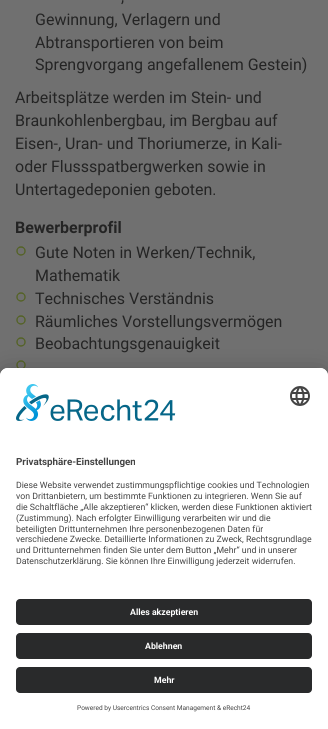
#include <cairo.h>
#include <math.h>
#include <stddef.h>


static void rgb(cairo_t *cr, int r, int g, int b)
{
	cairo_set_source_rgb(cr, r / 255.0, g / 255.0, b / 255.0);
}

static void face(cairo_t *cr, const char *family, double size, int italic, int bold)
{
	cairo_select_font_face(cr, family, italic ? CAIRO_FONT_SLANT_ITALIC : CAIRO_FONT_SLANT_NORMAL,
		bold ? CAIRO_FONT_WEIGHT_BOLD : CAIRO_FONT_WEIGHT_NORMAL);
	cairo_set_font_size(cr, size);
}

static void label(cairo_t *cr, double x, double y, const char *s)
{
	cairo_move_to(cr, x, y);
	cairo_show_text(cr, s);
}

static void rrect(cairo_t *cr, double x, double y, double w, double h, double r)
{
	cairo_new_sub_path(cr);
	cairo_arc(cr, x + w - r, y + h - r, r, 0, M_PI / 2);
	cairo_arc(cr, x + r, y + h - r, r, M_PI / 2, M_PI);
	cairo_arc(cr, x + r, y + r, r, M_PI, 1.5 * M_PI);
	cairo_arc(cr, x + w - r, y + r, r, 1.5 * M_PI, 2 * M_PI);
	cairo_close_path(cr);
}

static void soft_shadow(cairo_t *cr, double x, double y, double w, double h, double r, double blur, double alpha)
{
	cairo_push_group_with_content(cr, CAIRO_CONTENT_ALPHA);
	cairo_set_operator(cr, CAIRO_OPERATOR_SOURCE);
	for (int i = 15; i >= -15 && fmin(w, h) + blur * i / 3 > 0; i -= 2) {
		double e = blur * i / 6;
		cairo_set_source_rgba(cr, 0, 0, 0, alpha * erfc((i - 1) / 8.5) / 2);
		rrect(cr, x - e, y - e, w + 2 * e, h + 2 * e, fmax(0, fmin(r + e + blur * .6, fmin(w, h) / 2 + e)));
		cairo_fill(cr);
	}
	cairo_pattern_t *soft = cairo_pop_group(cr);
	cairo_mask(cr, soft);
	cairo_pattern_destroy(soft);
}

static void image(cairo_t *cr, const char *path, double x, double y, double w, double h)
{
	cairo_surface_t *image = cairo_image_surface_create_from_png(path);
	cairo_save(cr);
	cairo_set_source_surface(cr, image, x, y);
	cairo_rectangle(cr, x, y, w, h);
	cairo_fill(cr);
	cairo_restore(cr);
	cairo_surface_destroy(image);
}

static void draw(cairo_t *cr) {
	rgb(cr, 112, 112, 112);
	cairo_paint(cr);
	face(cr, "Roboto", 16, 0, 0);
	rgb(cr, 36, 36, 36);
	label(cr, 121, 2, ",");
	label(cr, 35, 25, "Gewinnung, Verlagern und");
	label(cr, 35, 48, "Abtransportieren von beim");
	label(cr, 35, 70, "Sprengvorgang angefallenem Gestein)");
	label(cr, 15, 103, "Arbeitsplätze werden im Stein- und");
	label(cr, 15, 126, "Braunkohlenbergbau, im Bergbau auf");
	label(cr, 15, 149, "Eisen-, Uran- und Thoriumerze, in Kali-");
	label(cr, 15, 172, "oder Flussspatbergwerken sowie in");
	label(cr, 15, 195, "Untertagedeponien geboten.");
	face(cr, "Roboto", 16, 0, 1);
	label(cr, 15, 233, "Bewerberprofil");
	image(cr, "image0.png", 16, 246, 10, 10);
	face(cr, "Roboto", 16, 0, 0);
	label(cr, 35, 258, "Gute Noten in Werken/Technik,");
	label(cr, 35, 281, "Mathematik");
	image(cr, "image0.png", 16, 292, 10, 10);
	label(cr, 35, 304, "Technisches Verständnis");
	image(cr, "image0.png", 16, 315, 10, 10);
	label(cr, 35, 327, "Räumliches Vorstellungsvermögen");
	image(cr, "image0.png", 16, 337, 10, 10);
	label(cr, 35, 349, "Beobachtungsgenauigkeit");
	image(cr, "image1.png", 16, 360, 10, 8);
	rgb(cr, 0, 0, 0);
	soft_shadow(cr, 0, 388, 328, 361, 8, 14, 0.3);
	soft_shadow(cr, 0, 373, 328, 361, 8, 13, 0.22);
	rgb(cr, 255, 255, 255);
	cairo_new_path(cr);
	cairo_move_to(cr, 8, 368);
	cairo_line_to(cr, 320, 368);
	cairo_curve_to(cr, 324.5, 368, 328, 371.5, 328, 376);
	cairo_line_to(cr, 328, 729);
	cairo_line_to(cr, 0, 729);
	cairo_line_to(cr, 0, 376);
	cairo_curve_to(cr, 0, 371.5, 3.5, 368, 8, 368);
	cairo_close_path(cr);
	cairo_fill(cr);
	cairo_new_path(cr);
	cairo_move_to(cr, 8, 368);
	cairo_line_to(cr, 320, 368);
	cairo_curve_to(cr, 324.5, 368, 328, 371.5, 328, 376);
	cairo_line_to(cr, 328, 587);
	cairo_line_to(cr, 0, 587);
	cairo_line_to(cr, 0, 376);
	cairo_curve_to(cr, 0, 371.5, 3.5, 368, 8, 368);
	cairo_close_path(cr);
	cairo_fill(cr);
	image(cr, "image2.png", 16, 384, 160, 37);
	image(cr, "image3.png", 290, 386, 20, 20);
	face(cr, "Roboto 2", 9.8, 0, 1);
	rgb(cr, 68, 68, 68);
	label(cr, 16, 465, "Privatsphäre-Einstellungen");
	face(cr, "Roboto 2", 8.75, 0, 0);
	label(cr, 16, 488, "Diese Website verwendet zustimmungspflichtige cookies und Technologien");
	label(cr, 16, 499, "von Drittanbietern, um bestimmte Funktionen zu integrieren. Wenn Sie auf");
	label(cr, 16, 510, "die Schaltfläche „Alle akzeptieren“ klicken, werden diese Funktionen aktiviert");
	label(cr, 16, 521, "(Zustimmung). Nach erfolgter Einwilligung verarbeiten wir und die");
	label(cr, 16, 532, "beteiligten Drittunternehmen Ihre personenbezogenen Daten für");
	label(cr, 16, 542, "verschiedene Zwecke. Detaillierte Informationen zu Zweck, Rechtsgrundlage");
	label(cr, 16, 553, "und Drittunternehmen finden Sie unter dem Button „Mehr“ und in unserer");
	label(cr, 16, 564, "Datenschutzerklärung. Sie können Ihre Einwilligung jederzeit widerrufen.");
	rgb(cr, 41, 42, 43);
	rrect(cr, 16, 599, 296, 26, 4);
	cairo_fill(cr);
	face(cr, "Roboto 2", 8.75, 0, 1);
	rgb(cr, 255, 255, 255);
	label(cr, 130, 615, "Alles akzeptieren");
	rgb(cr, 41, 42, 43);
	rrect(cr, 16, 633, 296, 26, 4);
	cairo_fill(cr);
	rgb(cr, 255, 255, 255);
	label(cr, 145, 649, "Ablehnen");
	rgb(cr, 41, 42, 43);
	rrect(cr, 16, 667, 296, 26, 4);
	cairo_fill(cr);
	rgb(cr, 255, 255, 255);
	label(cr, 154, 683, "Mehr");
	face(cr, "Roboto 2", 6.55, 0, 0);
	rgb(cr, 68, 68, 68);
	label(cr, 77, 710, "Powered by Usercentrics Consent Management & eRecht24");
}

int main(void) {
	cairo_surface_t *surface = cairo_image_surface_create(CAIRO_FORMAT_RGB24, 328, 729);
	cairo_t *cr = cairo_create(surface);
	cairo_font_options_t *options = cairo_font_options_create();
	cairo_font_options_set_hint_metrics(options, CAIRO_HINT_METRICS_OFF);
	cairo_font_options_set_hint_style(options, CAIRO_HINT_STYLE_NONE);
	cairo_set_font_options(cr, options);
	cairo_set_miter_limit(cr, 4);
	draw(cr);
	cairo_surface_write_to_png(surface, "render.png");
	cairo_font_options_destroy(options);
	cairo_destroy(cr);
	cairo_surface_destroy(surface);
	return 0;
}
